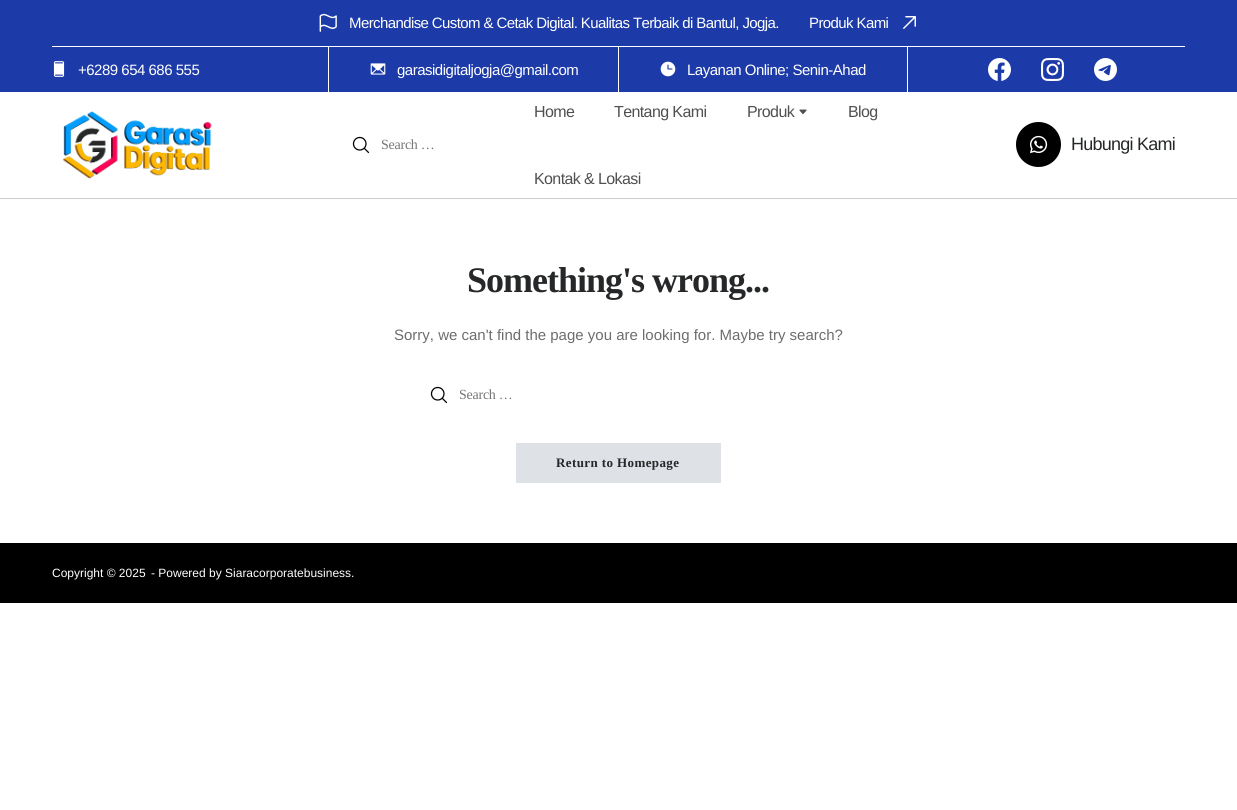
#include <cairo.h>
#include <math.h>
#include <stddef.h>


static void rgb(cairo_t *cr, int r, int g, int b)
{
	cairo_set_source_rgb(cr, r / 255.0, g / 255.0, b / 255.0);
}

static void face(cairo_t *cr, const char *family, double size, int italic, int bold)
{
	cairo_select_font_face(cr, family, italic ? CAIRO_FONT_SLANT_ITALIC : CAIRO_FONT_SLANT_NORMAL,
		bold ? CAIRO_FONT_WEIGHT_BOLD : CAIRO_FONT_WEIGHT_NORMAL);
	cairo_set_font_size(cr, size);
}

static void label(cairo_t *cr, double x, double y, const char *s)
{
	cairo_move_to(cr, x, y);
	cairo_show_text(cr, s);
}

static void tracked(cairo_t *cr, double x, double y, const char *s, double letter, double word)
{
	cairo_move_to(cr, x, y);
	while (*s) {
		char ch[5] = {0};
		int n = 0;
		do ch[n++] = *s++; while ((*s & 0xC0) == 0x80);
		cairo_show_text(cr, ch);
		cairo_rel_move_to(cr, letter + word * (*ch == ' '), 0);
	}
}

static void rect(cairo_t *cr, double x, double y, double w, double h)
{
	cairo_rectangle(cr, x, y, w, h);
	cairo_fill(cr);
}

static void image(cairo_t *cr, const char *path, double x, double y, double w, double h)
{
	cairo_surface_t *image = cairo_image_surface_create_from_png(path);
	cairo_save(cr);
	cairo_set_source_surface(cr, image, x, y);
	cairo_rectangle(cr, x, y, w, h);
	cairo_fill(cr);
	cairo_restore(cr);
	cairo_surface_destroy(image);
}

static void draw(cairo_t *cr) {
	rgb(cr, 255, 255, 255);
	cairo_paint(cr);
	rgb(cr, 28, 58, 168);
	rect(cr, 0, 0, 1237, 92);
	rgb(cr, 255, 255, 255);
	rect(cr, 52, 46, 1133, 1);
	image(cr, "image0.png", 319, 13, 18, 19);
	face(cr, "Liberation Sans", 15, 0, 0);
	tracked(cr, 349, 28, "Merchandise Custom & Cetak Digital. Kualitas Terbaik di Bantul, Jogja.", -0.6, 0);
	tracked(cr, 809, 28, "Produk Kami", -0.6, 0);
	image(cr, "image1.png", 903, 16, 13, 13);
	rect(cr, 328, 47, 1, 45);
	image(cr, "image2.png", 53, 61, 12, 16);
	tracked(cr, 78, 75, "+6289 654 686 555", -0.5, 0);
	rect(cr, 618, 47, 1, 45);
	image(cr, "image3.png", 370, 63, 16, 12);
	tracked(cr, 397, 75, "garasidigitaljogja@gmail.com", -0.5, 0);
	rect(cr, 907, 47, 1, 45);
	image(cr, "image4.png", 660, 61, 16, 16);
	tracked(cr, 687, 75, "Layanan Online; Senin-Ahad", -0.5, 0);
	image(cr, "image5.png", 988, 58, 23, 23);
	image(cr, "image6.png", 1041, 58, 23, 23);
	image(cr, "image7.png", 1094, 58, 23, 23);
	rgb(cr, 204, 204, 204);
	rect(cr, 0, 198, 1237, 1);
	image(cr, "image8.png", 63, 111, 149, 68);
	image(cr, "image9.png", 352, 136, 18, 18);
	face(cr, "Liberation Serif", 14, 0, 0);
	rgb(cr, 117, 117, 117);
	tracked(cr, 381, 149, "Search …", -0.25, 0);
	face(cr, "Liberation Sans", 16, 0, 0);
	rgb(cr, 80, 80, 80);
	tracked(cr, 534, 117, "Home", -0.6, 0);
	tracked(cr, 614, 117, "Tentang Kami", -0.6, 0);
	tracked(cr, 747, 117, "Produk", -0.6, 0);
	image(cr, "image10.png", 799, 109, 8, 6);
	tracked(cr, 848, 117, "Blog", -0.6, 0);
	tracked(cr, 534, 184, "Kontak & Lokasi", -0.6, 0);
	rgb(cr, 0, 0, 0);
	cairo_new_path(cr);
	cairo_arc(cr, 1038.5, 144.5, 22.5, 0, 2 * M_PI);
	cairo_fill(cr);
	image(cr, "image11.png", 1030, 135, 18, 19);
	face(cr, "Liberation Sans", 18, 0, 0);
	rgb(cr, 37, 39, 40);
	tracked(cr, 1071, 150, "Hubungi Kami", -0.75, 0);
	face(cr, "Liberation Serif", 36, 0, 1);
	tracked(cr, 467, 292, "Something's wrong...", -1, 0);
	face(cr, "Liberation Sans", 15, 0, 0);
	rgb(cr, 109, 109, 109);
	label(cr, 394, 340, "Sorry, we can't find the page you are looking for. Maybe try search?");
	image(cr, "image9.png", 430, 386, 18, 18);
	face(cr, "Liberation Serif", 14, 0, 0);
	rgb(cr, 117, 117, 117);
	tracked(cr, 459, 399, "Search …", -0.25, 0);
	rgb(cr, 222, 226, 230);
	rect(cr, 516, 443, 205, 40);
	face(cr, "Liberation Serif", 13, 0, 1);
	rgb(cr, 37, 39, 40);
	tracked(cr, 556, 467, "Return to Homepage", 0.4, 0);
	rgb(cr, 0, 0, 0);
	rect(cr, 0, 543, 1237, 60);
	face(cr, "Liberation Sans", 12, 0, 0);
	rgb(cr, 255, 255, 255);
	label(cr, 52, 577, "Copyright © 2025");
	label(cr, 151, 577, "- Powered by Siaracorporatebusiness.");
}

int main(void) {
	cairo_surface_t *surface = cairo_image_surface_create(CAIRO_FORMAT_RGB24, 1237, 810);
	cairo_t *cr = cairo_create(surface);
	cairo_font_options_t *options = cairo_font_options_create();
	cairo_font_options_set_hint_metrics(options, CAIRO_HINT_METRICS_OFF);
	cairo_font_options_set_hint_style(options, CAIRO_HINT_STYLE_NONE);
	cairo_set_font_options(cr, options);
	cairo_set_miter_limit(cr, 4);
	draw(cr);
	cairo_surface_write_to_png(surface, "render.png");
	cairo_font_options_destroy(options);
	cairo_destroy(cr);
	cairo_surface_destroy(surface);
	return 0;
}
